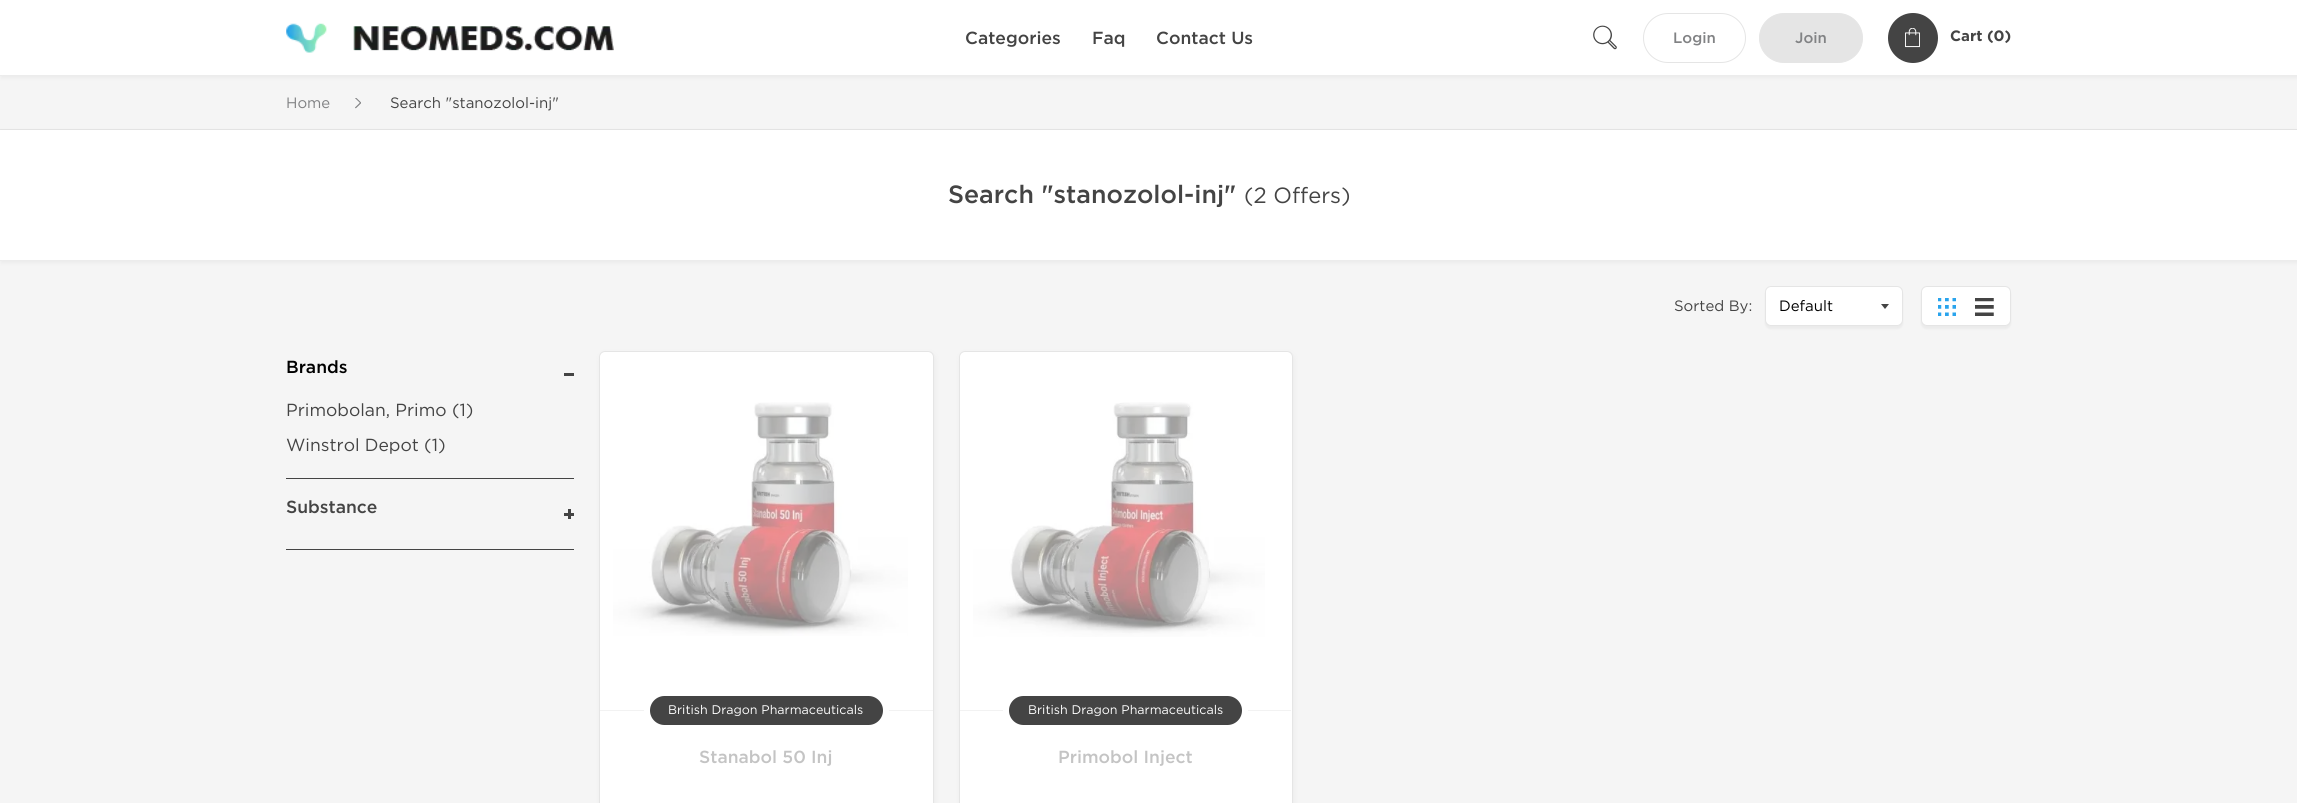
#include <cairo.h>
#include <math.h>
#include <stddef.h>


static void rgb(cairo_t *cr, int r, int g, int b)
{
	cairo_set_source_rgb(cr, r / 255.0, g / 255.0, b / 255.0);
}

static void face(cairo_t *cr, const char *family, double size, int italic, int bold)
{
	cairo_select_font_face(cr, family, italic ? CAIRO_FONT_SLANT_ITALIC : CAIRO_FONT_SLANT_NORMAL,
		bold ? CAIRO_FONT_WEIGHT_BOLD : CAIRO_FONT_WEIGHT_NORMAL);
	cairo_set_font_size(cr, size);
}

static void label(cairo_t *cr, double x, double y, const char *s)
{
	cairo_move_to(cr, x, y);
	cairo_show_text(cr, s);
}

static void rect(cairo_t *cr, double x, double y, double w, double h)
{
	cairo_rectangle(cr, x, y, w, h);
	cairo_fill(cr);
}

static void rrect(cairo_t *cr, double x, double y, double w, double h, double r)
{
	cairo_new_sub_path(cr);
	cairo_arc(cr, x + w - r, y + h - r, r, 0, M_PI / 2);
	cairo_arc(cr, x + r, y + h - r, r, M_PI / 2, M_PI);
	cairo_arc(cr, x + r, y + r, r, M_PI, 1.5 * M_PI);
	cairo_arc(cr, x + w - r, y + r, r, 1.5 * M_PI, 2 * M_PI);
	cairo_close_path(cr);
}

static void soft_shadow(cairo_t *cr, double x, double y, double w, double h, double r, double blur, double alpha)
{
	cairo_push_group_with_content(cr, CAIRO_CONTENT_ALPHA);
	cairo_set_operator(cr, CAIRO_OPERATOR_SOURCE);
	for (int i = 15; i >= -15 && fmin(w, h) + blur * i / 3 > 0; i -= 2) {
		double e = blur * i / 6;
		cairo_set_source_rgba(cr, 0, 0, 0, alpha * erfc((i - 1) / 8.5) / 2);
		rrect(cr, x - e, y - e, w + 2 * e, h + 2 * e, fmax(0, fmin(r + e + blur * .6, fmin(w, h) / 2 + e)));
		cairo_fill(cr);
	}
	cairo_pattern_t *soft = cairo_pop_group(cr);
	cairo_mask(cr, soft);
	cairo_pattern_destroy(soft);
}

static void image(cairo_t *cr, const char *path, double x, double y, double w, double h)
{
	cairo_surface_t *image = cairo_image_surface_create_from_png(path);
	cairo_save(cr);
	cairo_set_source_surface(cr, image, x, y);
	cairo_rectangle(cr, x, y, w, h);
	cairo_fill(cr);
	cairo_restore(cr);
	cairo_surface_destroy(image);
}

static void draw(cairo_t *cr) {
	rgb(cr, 245, 245, 245);
	cairo_paint(cr);
	rgb(cr, 68, 68, 68);
	soft_shadow(cr, 1, 1, 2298, 77, 0, 2, 0.06);
	rgb(cr, 255, 255, 255);
	rect(cr, 0, 0, 2297, 75);
	rgb(cr, 236, 236, 236);
	rect(cr, 0, 75, 2, 1);
	image(cr, "image0.png", 286, 23, 328, 30);
	face(cr, "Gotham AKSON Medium", 17.5, 0, 0);
	rgb(cr, 68, 68, 68);
	label(cr, 965, 44, "Categories");
	label(cr, 1092, 44, "Faq");
	label(cr, 1156, 44, "Contact Us");
	image(cr, "image1.png", 1593, 25, 24, 25);
	rrect(cr, 1643.5, 13.5, 102, 49, 24.5);
	rgb(cr, 229, 229, 229);
	cairo_set_line_width(cr, 1);
	cairo_stroke(cr);
	face(cr, "Gotham AKSON Medium", 15, 0, 0);
	rgb(cr, 129, 130, 132);
	label(cr, 1673, 43, "Login");
	rgb(cr, 229, 229, 229);
	rrect(cr, 1759.5, 13.5, 103, 49, 24.5);
	cairo_fill_preserve(cr);
	cairo_stroke(cr);
	rgb(cr, 129, 130, 132);
	label(cr, 1795, 43, "Join");
	rgb(cr, 68, 68, 68);
	cairo_new_path(cr);
	cairo_arc(cr, 1913, 38, 25, 0, 2 * M_PI);
	cairo_fill(cr);
	image(cr, "image2.png", 1905, 28, 15, 20);
	face(cr, "Gotham AKSON", 15, 0, 1);
	label(cr, 1950, 41, "Cart (0)");
	rgb(cr, 229, 229, 229);
	rect(cr, 0, 129, 2297, 1);
	face(cr, "Gotham AKSON", 15, 0, 0);
	rgb(cr, 129, 130, 132);
	label(cr, 286, 108, "Home");
	image(cr, "image3.png", 355, 98, 6, 11);
	rgb(cr, 68, 68, 68);
	label(cr, 390, 108, "Search \"stanozolol-inj\"");
	rgb(cr, 68, 68, 68);
	soft_shadow(cr, 1, 131, 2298, 132, 0, 2, 0.06);
	rgb(cr, 255, 255, 255);
	rect(cr, 0, 130, 2297, 130);
	rgb(cr, 236, 236, 236);
	rect(cr, 0, 260, 2, 1);
	face(cr, "Gotham AKSON Medium", 25, 0, 0);
	rgb(cr, 68, 68, 68);
	label(cr, 948, 203, "Search \"stanozolol-inj\"");
	face(cr, "Gotham AKSON", 22, 0, 0);
	label(cr, 1244, 203, "(2 Offers)");
	face(cr, "Gotham AKSON", 15, 0, 0);
	label(cr, 1674, 311, "Sorted By:");
	rgb(cr, 68, 68, 68);
	soft_shadow(cr, 1765, 289, 138, 40, 6, 1, 0.06);
	rgb(cr, 255, 255, 255);
	rrect(cr, 1765.5, 286.5, 137, 39, 5.5);
	cairo_fill_preserve(cr);
	rgb(cr, 229, 229, 229);
	cairo_stroke(cr);
	rgb(cr, 0, 0, 0);
	label(cr, 1779, 311, "Default");
	rgb(cr, 68, 68, 68);
	cairo_new_path(cr);
	cairo_move_to(cr, 1881, 304);
	cairo_line_to(cr, 1889, 304);
	cairo_line_to(cr, 1885, 309);
	cairo_close_path(cr);
	cairo_fill(cr);
	rgb(cr, 68, 68, 68);
	soft_shadow(cr, 1921, 289, 90, 40, 6, 1, 0.06);
	rgb(cr, 255, 255, 255);
	rrect(cr, 1921.5, 286.5, 89, 39, 5.5);
	cairo_fill_preserve(cr);
	rgb(cr, 229, 229, 229);
	cairo_stroke(cr);
	image(cr, "image4.png", 1938, 298, 18, 18);
	image(cr, "image5.png", 1975, 298, 19, 18);
	rgb(cr, 68, 68, 68);
	rect(cr, 286, 478, 288, 1);
	face(cr, "Gotham AKSON Medium", 17.5, 0, 0);
	rgb(cr, 0, 0, 0);
	label(cr, 286, 373, "Brands");
	rgb(cr, 68, 68, 68);
	rect(cr, 564, 373, 10, 3);
	face(cr, "Gotham AKSON", 17.5, 0, 0);
	label(cr, 286, 416, "Primobolan, Primo (1)");
	label(cr, 286, 451, "Winstrol Depot (1)");
	rect(cr, 286, 549, 288, 1);
	face(cr, "Gotham AKSON Medium", 17.5, 0, 0);
	label(cr, 286, 513, "Substance");
	rect(cr, 564, 513, 10, 3);
	rect(cr, 568, 509, 3, 10);
	rgb(cr, 68, 68, 68);
	soft_shadow(cr, 600, 353, 335, 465, 6, 3, 0.06);
	rgb(cr, 255, 255, 255);
	rrect(cr, 599.5, 351.5, 334, 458, 5.5);
	cairo_fill_preserve(cr);
	rgb(cr, 229, 229, 229);
	cairo_stroke(cr);
	rgb(cr, 242, 242, 242);
	rect(cr, 600, 710, 333, 1);
	image(cr, "image6.png", 613, 402, 295, 234);
	rgb(cr, 68, 68, 68);
	rrect(cr, 647, 693, 239, 35, 17.5);
	cairo_fill_preserve(cr);
	rgb(cr, 255, 255, 255);
	cairo_set_line_width(cr, 6);
	cairo_stroke(cr);
	face(cr, "Gotham AKSON", 12.5, 0, 0);
	label(cr, 668, 714, "British Dragon Pharmaceuticals");
	face(cr, "Gotham AKSON Medium", 17.5, 0, 0);
	rgb(cr, 196, 196, 196);
	label(cr, 699, 763, "Stanabol 50 Inj");
	rgb(cr, 68, 68, 68);
	soft_shadow(cr, 960, 353, 334, 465, 6, 3, 0.06);
	rgb(cr, 255, 255, 255);
	rrect(cr, 959.5, 351.5, 333, 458, 5.5);
	cairo_fill_preserve(cr);
	rgb(cr, 229, 229, 229);
	cairo_set_line_width(cr, 1);
	cairo_stroke(cr);
	rgb(cr, 242, 242, 242);
	rect(cr, 960, 710, 331, 1);
	image(cr, "image7.png", 973, 402, 292, 235);
	rgb(cr, 68, 68, 68);
	rrect(cr, 1006, 693, 239, 35, 17.5);
	cairo_fill_preserve(cr);
	rgb(cr, 255, 255, 255);
	cairo_set_line_width(cr, 6);
	cairo_stroke(cr);
	face(cr, "Gotham AKSON", 12.5, 0, 0);
	label(cr, 1028, 714, "British Dragon Pharmaceuticals");
	face(cr, "Gotham AKSON Medium", 17.5, 0, 0);
	rgb(cr, 196, 196, 196);
	label(cr, 1058, 763, "Primobol Inject");
}

int main(void) {
	cairo_surface_t *surface = cairo_image_surface_create(CAIRO_FORMAT_RGB24, 2297, 803);
	cairo_t *cr = cairo_create(surface);
	cairo_font_options_t *options = cairo_font_options_create();
	cairo_font_options_set_hint_metrics(options, CAIRO_HINT_METRICS_OFF);
	cairo_font_options_set_hint_style(options, CAIRO_HINT_STYLE_NONE);
	cairo_set_font_options(cr, options);
	cairo_set_miter_limit(cr, 4);
	draw(cr);
	cairo_surface_write_to_png(surface, "render.png");
	cairo_font_options_destroy(options);
	cairo_destroy(cr);
	cairo_surface_destroy(surface);
	return 0;
}
